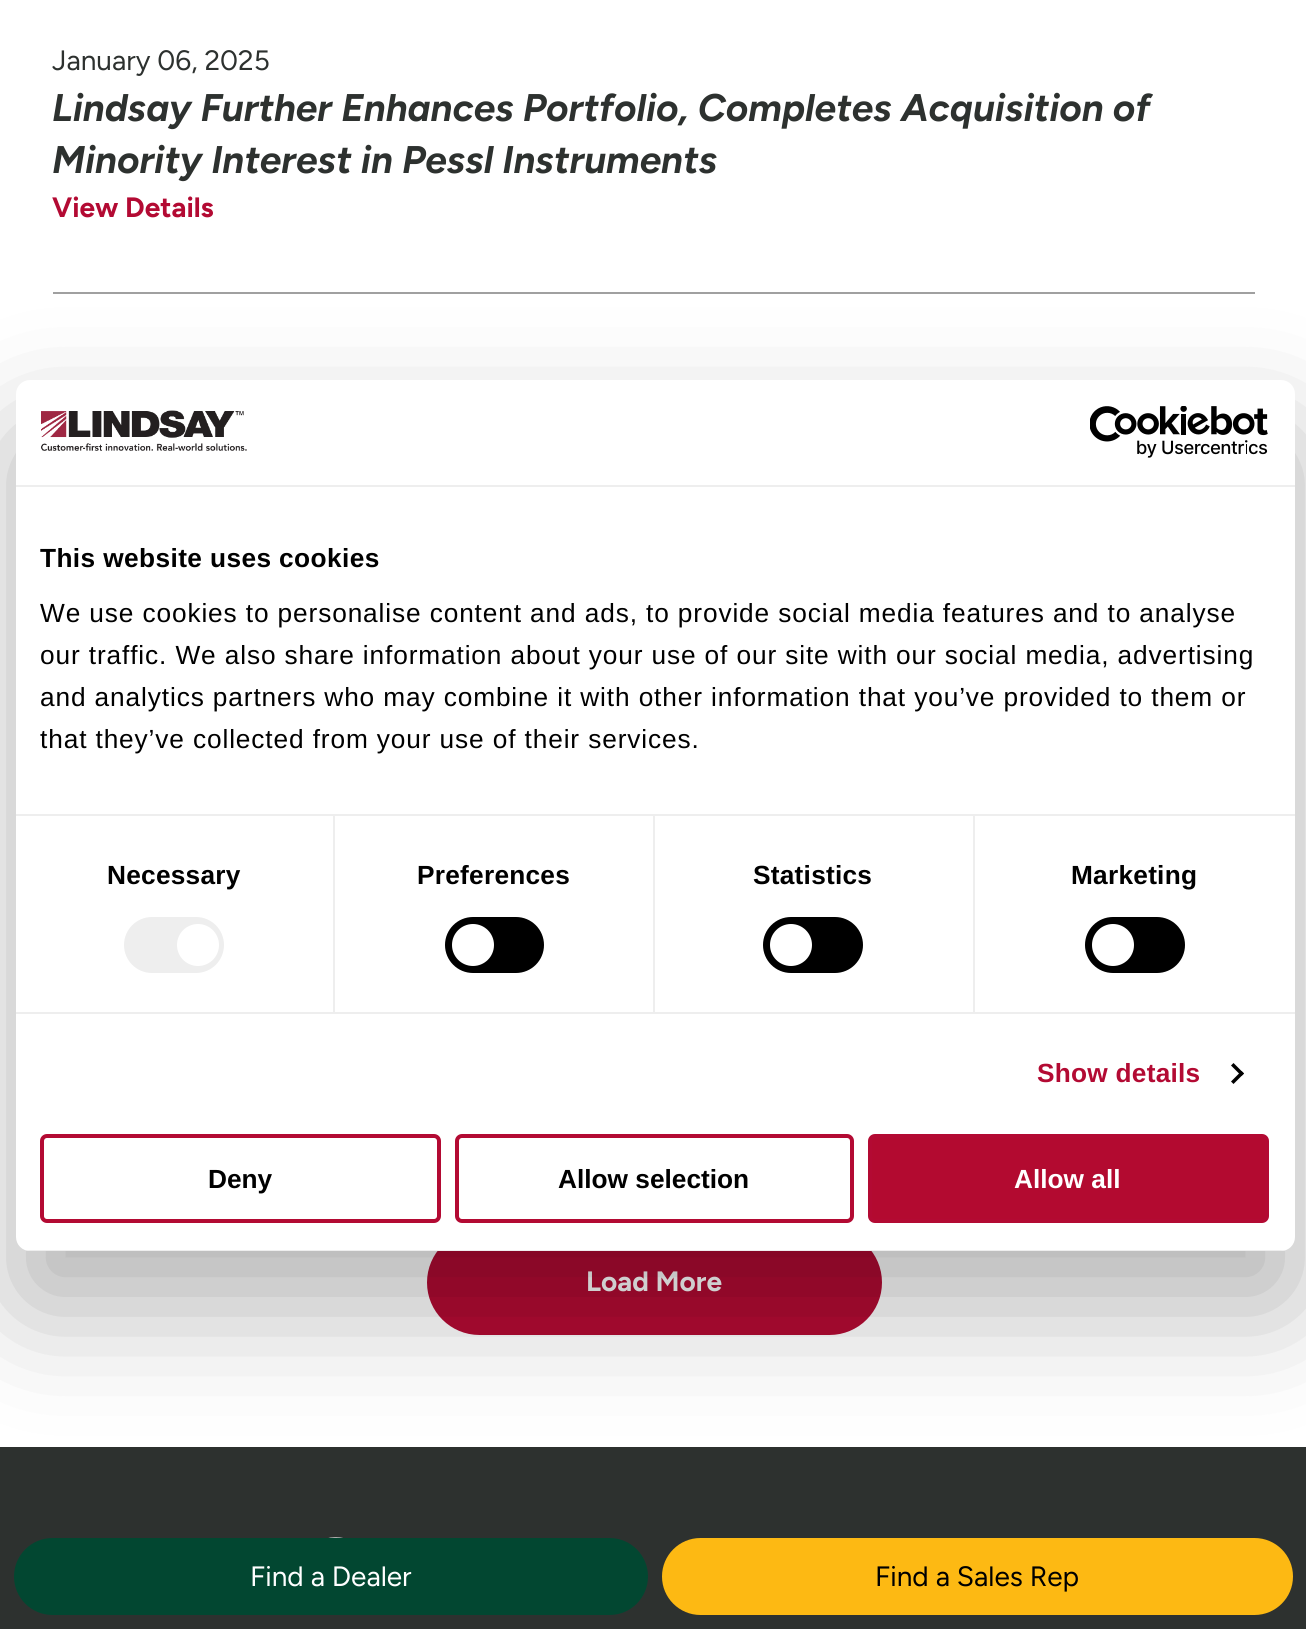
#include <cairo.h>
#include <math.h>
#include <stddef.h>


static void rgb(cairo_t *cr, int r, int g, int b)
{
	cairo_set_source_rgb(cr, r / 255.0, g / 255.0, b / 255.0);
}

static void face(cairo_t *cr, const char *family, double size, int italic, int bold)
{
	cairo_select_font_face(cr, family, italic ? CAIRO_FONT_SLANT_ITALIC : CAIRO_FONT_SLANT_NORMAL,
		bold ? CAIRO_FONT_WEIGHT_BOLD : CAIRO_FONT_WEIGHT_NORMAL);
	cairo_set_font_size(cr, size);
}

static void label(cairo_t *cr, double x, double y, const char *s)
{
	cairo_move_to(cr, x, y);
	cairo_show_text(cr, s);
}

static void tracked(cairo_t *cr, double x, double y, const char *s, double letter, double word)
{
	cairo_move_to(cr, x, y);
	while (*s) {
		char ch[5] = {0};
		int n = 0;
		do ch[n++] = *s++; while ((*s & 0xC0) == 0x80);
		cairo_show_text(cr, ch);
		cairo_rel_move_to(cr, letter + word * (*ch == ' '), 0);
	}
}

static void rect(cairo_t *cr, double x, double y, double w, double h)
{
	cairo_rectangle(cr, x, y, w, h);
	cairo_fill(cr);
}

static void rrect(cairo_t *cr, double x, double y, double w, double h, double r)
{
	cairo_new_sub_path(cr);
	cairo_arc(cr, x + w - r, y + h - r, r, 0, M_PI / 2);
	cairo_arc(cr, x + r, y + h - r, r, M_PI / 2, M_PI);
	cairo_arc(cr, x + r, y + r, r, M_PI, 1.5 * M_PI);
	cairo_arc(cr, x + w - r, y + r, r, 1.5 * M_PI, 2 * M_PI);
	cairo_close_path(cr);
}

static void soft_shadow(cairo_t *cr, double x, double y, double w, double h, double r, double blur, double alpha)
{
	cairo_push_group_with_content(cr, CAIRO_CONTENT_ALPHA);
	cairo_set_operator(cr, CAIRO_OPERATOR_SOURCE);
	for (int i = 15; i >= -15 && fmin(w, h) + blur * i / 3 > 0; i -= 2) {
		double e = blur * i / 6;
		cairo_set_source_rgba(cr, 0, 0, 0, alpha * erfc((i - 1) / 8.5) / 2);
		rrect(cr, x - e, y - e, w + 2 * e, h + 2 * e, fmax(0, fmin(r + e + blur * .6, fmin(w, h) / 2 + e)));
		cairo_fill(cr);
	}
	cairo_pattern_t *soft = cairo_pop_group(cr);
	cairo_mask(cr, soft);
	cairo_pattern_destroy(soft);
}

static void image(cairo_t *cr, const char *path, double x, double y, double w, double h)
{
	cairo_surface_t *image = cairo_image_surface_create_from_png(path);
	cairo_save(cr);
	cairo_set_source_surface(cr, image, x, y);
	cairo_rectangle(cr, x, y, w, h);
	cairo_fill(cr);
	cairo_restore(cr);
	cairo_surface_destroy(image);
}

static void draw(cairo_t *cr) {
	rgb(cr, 255, 255, 255);
	cairo_paint(cr);
	rgb(cr, 160, 160, 160);
	rect(cr, 53, 292, 1202, 2);
	face(cr, "Figtree", 28, 0, 0);
	rgb(cr, 45, 49, 47);
	label(cr, 52, 70, "January 06, 2025");
	face(cr, "Figtree", 38.5, 1, 1);
	label(cr, 52, 121, "Lindsay Further Enhances Portfolio, Completes Acquisition of");
	label(cr, 52, 173, "Minority Interest in Pessl Instruments");
	face(cr, "Figtree", 28, 0, 1);
	rgb(cr, 179, 10, 51);
	label(cr, 52, 217, "View Details");
	rrect(cr, 427, 1230, 455, 105, 52.5);
	cairo_fill(cr);
	rgb(cr, 255, 255, 255);
	label(cr, 586, 1291, "Load More");
	rgb(cr, 45, 49, 47);
	rect(cr, 0, 1447, 1306, 182);
	image(cr, "image0.png", 328, 1537, 15, 1);
	rgb(cr, 2, 71, 49);
	rrect(cr, 14, 1538, 634, 77, 38.5);
	cairo_fill(cr);
	face(cr, "Figtree", 28, 0, 0);
	rgb(cr, 255, 255, 255);
	label(cr, 250, 1586, "Find a Dealer");
	rgb(cr, 253, 185, 19);
	rrect(cr, 662, 1538, 631, 77, 38.5);
	cairo_fill(cr);
	rgb(cr, 0, 0, 0);
	label(cr, 875, 1586, "Find a Sales Rep");
	rgb(cr, 0, 0, 0);
	soft_shadow(cr, 16, 436, 1279, 871, 14, 59.5, 0.3);
	rgb(cr, 255, 255, 255);
	rrect(cr, 16, 380, 1279, 871, 14);
	cairo_fill(cr);
	rgb(cr, 238, 238, 238);
	rect(cr, 16, 485, 1279, 2);
	image(cr, "image1.png", 41, 410, 206, 41);
	image(cr, "image2.png", 1090, 406, 178, 52);
	rect(cr, 16, 814, 1279, 2);
	face(cr, "Liberation Sans", 26.25, 0, 1);
	rgb(cr, 0, 0, 0);
	tracked(cr, 40, 567, "This website uses cookies", 0.4, 0);
	face(cr, "Liberation Sans", 26.25, 0, 0);
	tracked(cr, 40, 622, "We use cookies to personalise content and ads, to provide social media features and to analyse", 0.88, 0);
	tracked(cr, 40, 664, "our traffic. We also share information about your use of our site with our social media, advertising", 0.88, 0);
	tracked(cr, 40, 706, "and analytics partners who may combine it with other information that you’ve provided to them or", 0.88, 0);
	tracked(cr, 40, 748, "that they’ve collected from your use of their services.", 0.88, 0);
	rgb(cr, 238, 238, 238);
	rect(cr, 16, 1012, 1279, 2);
	rect(cr, 333, 816, 2, 196);
	face(cr, "Liberation Sans", 26.25, 0, 1);
	rgb(cr, 0, 0, 0);
	tracked(cr, 107, 884, "Necessary", 0.25, 0);
	rgb(cr, 238, 238, 238);
	rrect(cr, 124, 917, 100, 56, 28);
	cairo_fill(cr);
	rgb(cr, 255, 255, 255);
	cairo_arc(cr, 198, 945, 21, 0, 2 * M_PI);
	cairo_fill(cr);
	rgb(cr, 238, 238, 238);
	rect(cr, 653, 816, 2, 196);
	rgb(cr, 0, 0, 0);
	tracked(cr, 417, 884, "Preferences", 0.25, 0);
	rrect(cr, 445, 917, 99, 56, 28);
	cairo_fill(cr);
	rgb(cr, 255, 255, 255);
	cairo_arc(cr, 473, 945, 21, 0, 2 * M_PI);
	cairo_fill(cr);
	rgb(cr, 238, 238, 238);
	rect(cr, 973, 816, 2, 196);
	rgb(cr, 0, 0, 0);
	tracked(cr, 753, 884, "Statistics", 0.25, 0);
	rrect(cr, 763, 917, 100, 56, 28);
	cairo_fill(cr);
	rgb(cr, 255, 255, 255);
	cairo_arc(cr, 791, 945, 21, 0, 2 * M_PI);
	cairo_fill(cr);
	rgb(cr, 0, 0, 0);
	tracked(cr, 1071, 884, "Marketing", 0.25, 0);
	rrect(cr, 1085, 917, 100, 56, 28);
	cairo_fill(cr);
	rgb(cr, 255, 255, 255);
	cairo_arc(cr, 1113, 945, 21, 0, 2 * M_PI);
	cairo_fill(cr);
	rgb(cr, 179, 10, 51);
	tracked(cr, 1037, 1082, "Show details", 0.25, 0);
	rgb(cr, 0, 0, 0);
	cairo_new_path(cr);
	cairo_move_to(cr, 1233.5, 1063);
	cairo_line_to(cr, 1244, 1073.5);
	cairo_line_to(cr, 1241.5, 1076);
	cairo_line_to(cr, 1231, 1065.5);
	cairo_close_path(cr);
	cairo_fill(cr);
	cairo_new_path(cr);
	cairo_move_to(cr, 1241.5, 1071);
	cairo_line_to(cr, 1244, 1073.5);
	cairo_line_to(cr, 1233.5, 1084);
	cairo_line_to(cr, 1231, 1081.5);
	cairo_close_path(cr);
	cairo_fill(cr);
	cairo_save(cr);
	rrect(cr, 16, 380, 1279, 871, 14);
	cairo_clip(cr);
	rgb(cr, 238, 238, 238);
	rect(cr, 25, 1250, 1261, 1);
	cairo_restore(cr);
	rrect(cr, 42, 1136, 397, 85, 5);
	rgb(cr, 179, 10, 51);
	cairo_set_line_width(cr, 4);
	cairo_stroke(cr);
	rgb(cr, 0, 0, 0);
	label(cr, 208, 1188, "Deny");
	rrect(cr, 457, 1136, 395, 85, 5);
	rgb(cr, 179, 10, 51);
	cairo_stroke(cr);
	rgb(cr, 0, 0, 0);
	label(cr, 558, 1188, "Allow selection");
	rgb(cr, 179, 10, 48);
	rrect(cr, 870, 1136, 397, 85, 5);
	cairo_fill_preserve(cr);
	rgb(cr, 179, 10, 51);
	cairo_stroke(cr);
	rgb(cr, 255, 255, 255);
	label(cr, 1014, 1188, "Allow all");
}

int main(void) {
	cairo_surface_t *surface = cairo_image_surface_create(CAIRO_FORMAT_RGB24, 1306, 1629);
	cairo_t *cr = cairo_create(surface);
	cairo_font_options_t *options = cairo_font_options_create();
	cairo_font_options_set_hint_metrics(options, CAIRO_HINT_METRICS_OFF);
	cairo_font_options_set_hint_style(options, CAIRO_HINT_STYLE_NONE);
	cairo_set_font_options(cr, options);
	cairo_set_miter_limit(cr, 4);
	draw(cr);
	cairo_surface_write_to_png(surface, "render.png");
	cairo_font_options_destroy(options);
	cairo_destroy(cr);
	cairo_surface_destroy(surface);
	return 0;
}
